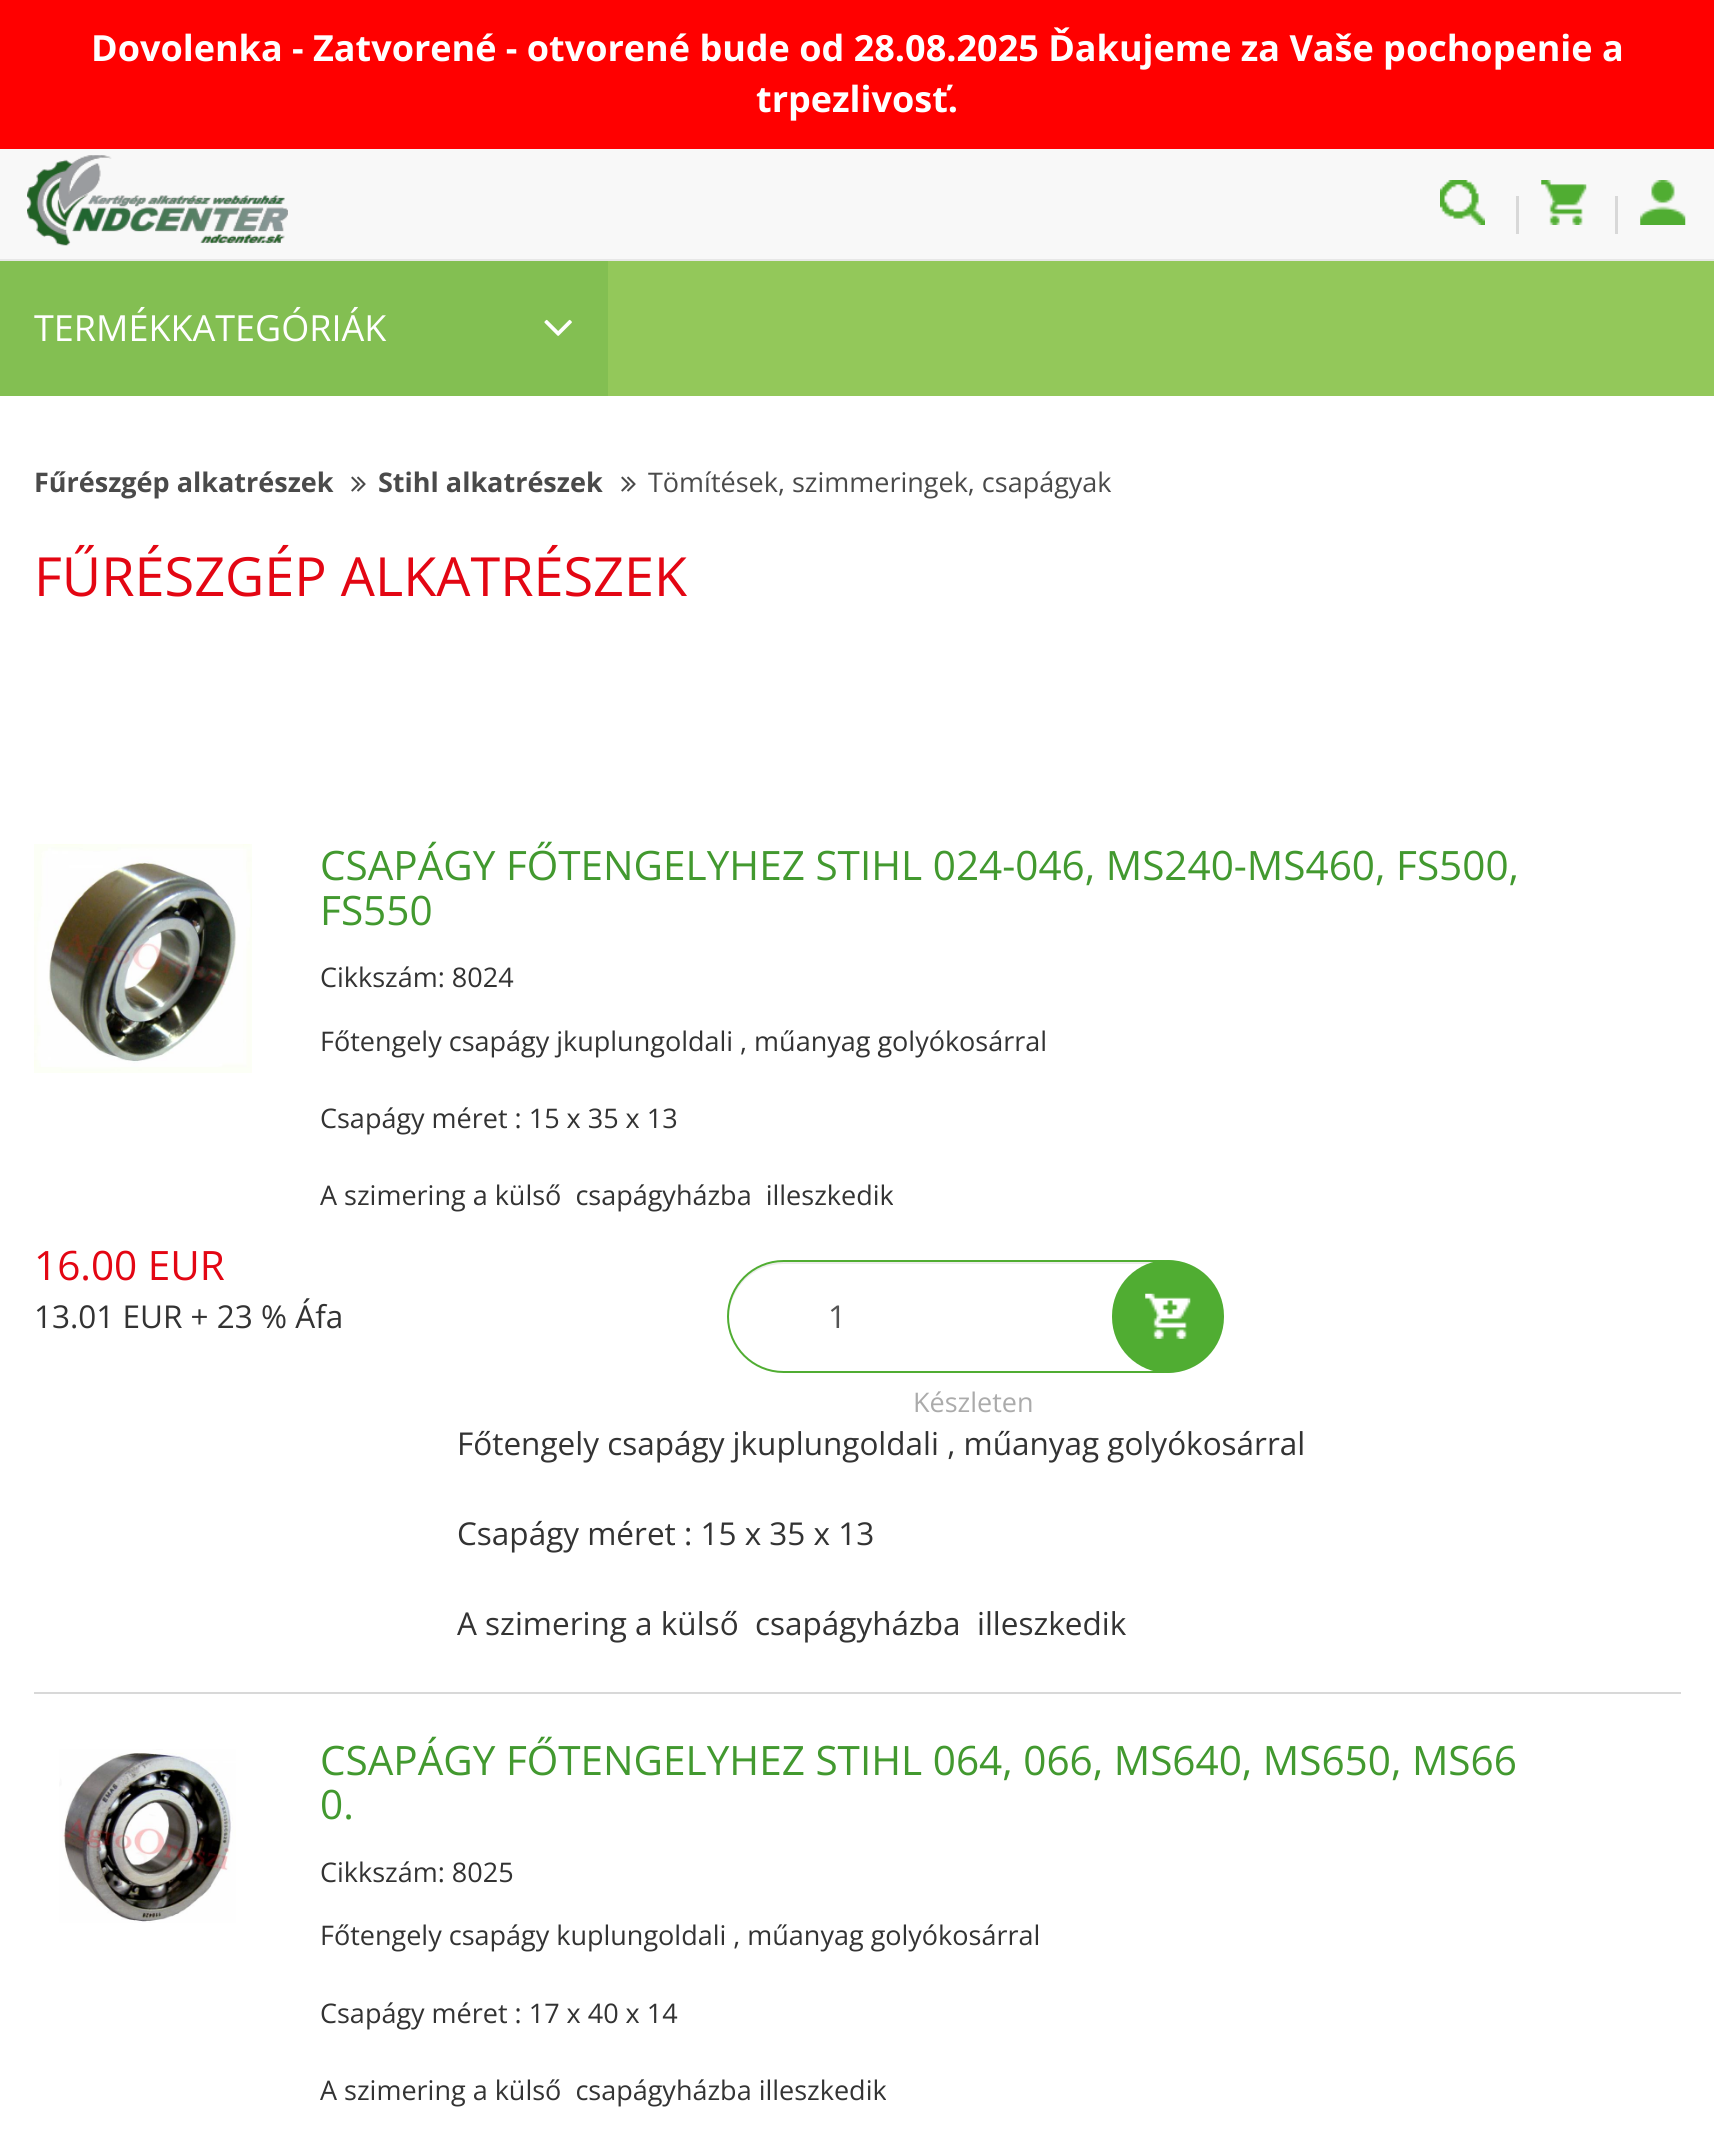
#include <cairo.h>
#include <math.h>
#include <stddef.h>


static void rgb(cairo_t *cr, int r, int g, int b)
{
	cairo_set_source_rgb(cr, r / 255.0, g / 255.0, b / 255.0);
}

static void face(cairo_t *cr, const char *family, double size, int italic, int bold)
{
	cairo_select_font_face(cr, family, italic ? CAIRO_FONT_SLANT_ITALIC : CAIRO_FONT_SLANT_NORMAL,
		bold ? CAIRO_FONT_WEIGHT_BOLD : CAIRO_FONT_WEIGHT_NORMAL);
	cairo_set_font_size(cr, size);
}

static void label(cairo_t *cr, double x, double y, const char *s)
{
	cairo_move_to(cr, x, y);
	cairo_show_text(cr, s);
}

static void rect(cairo_t *cr, double x, double y, double w, double h)
{
	cairo_rectangle(cr, x, y, w, h);
	cairo_fill(cr);
}

static void rrect(cairo_t *cr, double x, double y, double w, double h, double r)
{
	cairo_new_sub_path(cr);
	cairo_arc(cr, x + w - r, y + h - r, r, 0, M_PI / 2);
	cairo_arc(cr, x + r, y + h - r, r, M_PI / 2, M_PI);
	cairo_arc(cr, x + r, y + r, r, M_PI, 1.5 * M_PI);
	cairo_arc(cr, x + w - r, y + r, r, 1.5 * M_PI, 2 * M_PI);
	cairo_close_path(cr);
}

static void image(cairo_t *cr, const char *path, double x, double y, double w, double h)
{
	cairo_surface_t *image = cairo_image_surface_create_from_png(path);
	cairo_save(cr);
	cairo_set_source_surface(cr, image, x, y);
	cairo_rectangle(cr, x, y, w, h);
	cairo_fill(cr);
	cairo_restore(cr);
	cairo_surface_destroy(image);
}

static void draw(cairo_t *cr) {
	rgb(cr, 255, 0, 0);
	cairo_paint(cr);
	face(cr, "Open Sans", 36, 0, 1);
	rgb(cr, 255, 255, 255);
	label(cr, 91, 61, "Dovolenka - Zatvorené - otvorené bude od 28.08.2025 Ďakujeme za Vaše pochopenie a");
	label(cr, 756, 112, "trpezlivosť.");
	rgb(cr, 248, 248, 248);
	rect(cr, 0, 149, 1714, 110);
	rgb(cr, 231, 231, 231);
	rect(cr, 0, 259, 1714, 2);
	image(cr, "image0.png", 27, 155, 261, 91);
	image(cr, "image1.png", 1440, 180, 45, 45);
	rgb(cr, 216, 216, 216);
	rect(cr, 1516, 196, 3, 38);
	image(cr, "image2.png", 1541, 180, 46, 45);
	rect(cr, 1615, 196, 3, 38);
	image(cr, "image3.png", 1640, 180, 46, 45);
	rgb(cr, 147, 200, 90);
	rect(cr, 608, 261, 1106, 135);
	rgb(cr, 131, 191, 82);
	rect(cr, 0, 261, 608, 135);
	face(cr, "Open Sans", 36, 0, 0);
	rgb(cr, 255, 255, 255);
	label(cr, 34, 341, "TERMÉKKATEGÓRIÁK");
	image(cr, "image4.png", 544, 319, 28, 17);
	rect(cr, 0, 396, 1714, 1739);
	face(cr, "Open Sans", 27, 0, 1);
	rgb(cr, 74, 74, 74);
	label(cr, 34, 492, "Fűrészgép alkatrészek");
	image(cr, "image5.png", 351, 476, 15, 16);
	label(cr, 378, 492, "Stihl alkatrészek");
	image(cr, "image5.png", 621, 476, 15, 16);
	face(cr, "Open Sans", 27, 0, 0);
	label(cr, 648, 492, "Tömítések, szimmeringek, csapágyak");
	face(cr, "Open Sans", 54, 0, 0);
	rgb(cr, 227, 6, 19);
	label(cr, 34, 596, "FŰRÉSZGÉP ALKATRÉSZEK");
	rgb(cr, 216, 216, 216);
	rect(cr, 34, 1692, 1647, 2);
	image(cr, "image6.png", 34, 844, 218, 229);
	face(cr, "Open Sans", 40.5, 0, 0);
	rgb(cr, 66, 153, 47);
	label(cr, 320, 880, "CSAPÁGY FŐTENGELYHEZ STIHL 024-046, MS240-MS460, FS500,");
	label(cr, 320, 925, "FS550");
	face(cr, "Open Sans", 27, 0, 0);
	rgb(cr, 51, 51, 51);
	label(cr, 320, 987, "Cikkszám: 8024");
	label(cr, 320, 1051, "Főtengely csapágy jkuplungoldali , műanyag golyókosárral");
	label(cr, 320, 1128, "Csapágy méret : 15 x 35 x 13");
	label(cr, 320, 1205, "A szimering a külső  csapágyházba  illeszkedik");
	face(cr, "Open Sans", 40.5, 0, 0);
	rgb(cr, 227, 6, 19);
	label(cr, 34, 1280, "16.00 EUR");
	face(cr, "Open Sans", 31.5, 0, 0);
	rgb(cr, 51, 51, 51);
	label(cr, 34, 1328, "13.01 EUR + 23 % Áfa");
	rgb(cr, 236, 236, 236);
	cairo_new_path(cr);
	cairo_move_to(cr, 783, 1264);
	cairo_line_to(cr, 1163, 1264);
	cairo_curve_to(cr, 1193, 1264, 1216, 1288, 1217, 1317);
	cairo_line_to(cr, 1217, 1316);
	cairo_curve_to(cr, 1217, 1286, 1193, 1262, 1163, 1262);
	cairo_line_to(cr, 783, 1262);
	cairo_curve_to(cr, 753, 1262, 729, 1286, 729, 1316);
	cairo_line_to(cr, 729, 1317);
	cairo_curve_to(cr, 730, 1288, 753, 1264, 783, 1264);
	cairo_close_path(cr);
	cairo_fill(cr);
	rrect(cr, 728, 1261, 491, 111, 55.5);
	rgb(cr, 80, 173, 50);
	cairo_stroke(cr);
	rgb(cr, 85, 85, 85);
	label(cr, 828, 1328, "1");
	rgb(cr, 80, 173, 50);
	rrect(cr, 1112, 1260, 112, 113, 56);
	cairo_fill(cr);
	image(cr, "image7.png", 1145, 1293, 46, 46);
	face(cr, "Open Sans", 27, 0, 0);
	rgb(cr, 171, 171, 171);
	label(cr, 913, 1412, "Készleten");
	face(cr, "Open Sans", 31.5, 0, 0);
	rgb(cr, 51, 51, 51);
	label(cr, 457, 1455, "Főtengely csapágy jkuplungoldali , műanyag golyókosárral");
	label(cr, 457, 1545, "Csapágy méret : 15 x 35 x 13");
	label(cr, 457, 1635, "A szimering a külső  csapágyházba  illeszkedik");
	image(cr, "image8.png", 59, 1749, 177, 174);
	face(cr, "Open Sans", 40.5, 0, 0);
	rgb(cr, 66, 153, 47);
	label(cr, 320, 1775, "CSAPÁGY FŐTENGELYHEZ STIHL 064, 066, MS640, MS650, MS66");
	label(cr, 320, 1819, "0.");
	face(cr, "Open Sans", 27, 0, 0);
	rgb(cr, 51, 51, 51);
	label(cr, 320, 1882, "Cikkszám: 8025");
	label(cr, 320, 1945, "Főtengely csapágy kuplungoldali , műanyag golyókosárral");
	label(cr, 320, 2023, "Csapágy méret : 17 x 40 x 14");
	label(cr, 320, 2100, "A szimering a külső  csapágyházba illeszkedik");
}

int main(void) {
	cairo_surface_t *surface = cairo_image_surface_create(CAIRO_FORMAT_RGB24, 1714, 2135);
	cairo_t *cr = cairo_create(surface);
	cairo_font_options_t *options = cairo_font_options_create();
	cairo_font_options_set_hint_metrics(options, CAIRO_HINT_METRICS_OFF);
	cairo_font_options_set_hint_style(options, CAIRO_HINT_STYLE_NONE);
	cairo_set_font_options(cr, options);
	cairo_set_miter_limit(cr, 4);
	draw(cr);
	cairo_surface_write_to_png(surface, "render.png");
	cairo_font_options_destroy(options);
	cairo_destroy(cr);
	cairo_surface_destroy(surface);
	return 0;
}
